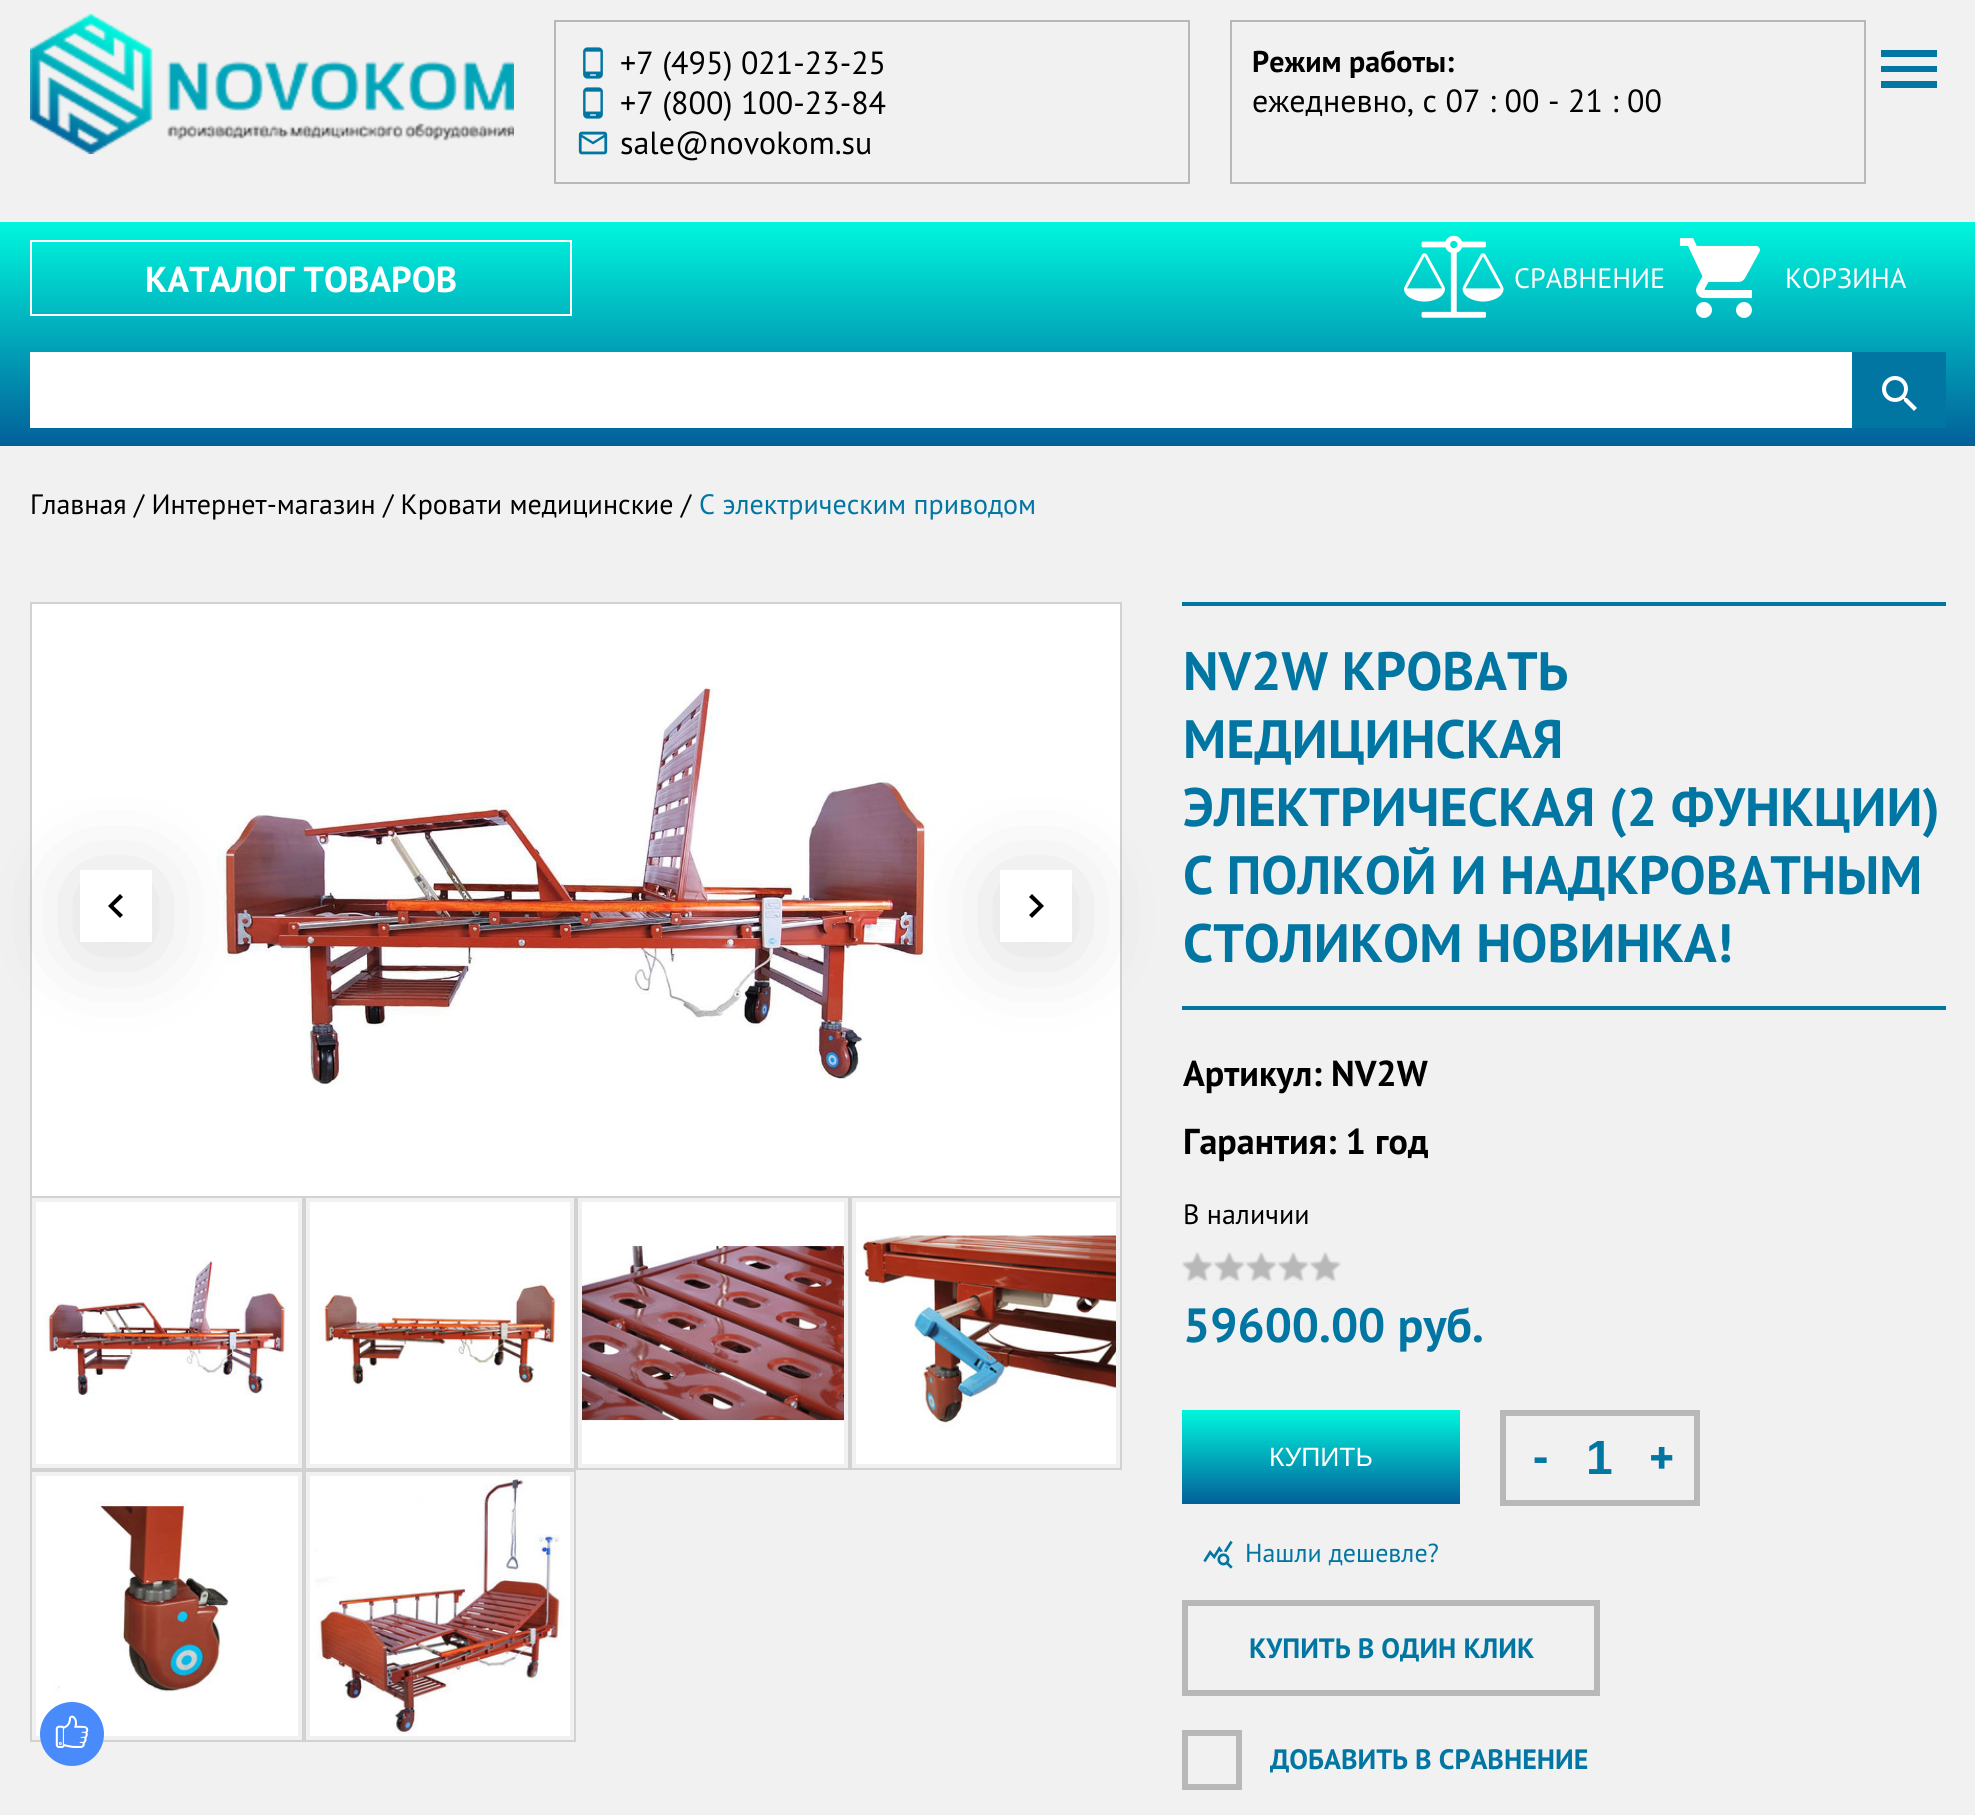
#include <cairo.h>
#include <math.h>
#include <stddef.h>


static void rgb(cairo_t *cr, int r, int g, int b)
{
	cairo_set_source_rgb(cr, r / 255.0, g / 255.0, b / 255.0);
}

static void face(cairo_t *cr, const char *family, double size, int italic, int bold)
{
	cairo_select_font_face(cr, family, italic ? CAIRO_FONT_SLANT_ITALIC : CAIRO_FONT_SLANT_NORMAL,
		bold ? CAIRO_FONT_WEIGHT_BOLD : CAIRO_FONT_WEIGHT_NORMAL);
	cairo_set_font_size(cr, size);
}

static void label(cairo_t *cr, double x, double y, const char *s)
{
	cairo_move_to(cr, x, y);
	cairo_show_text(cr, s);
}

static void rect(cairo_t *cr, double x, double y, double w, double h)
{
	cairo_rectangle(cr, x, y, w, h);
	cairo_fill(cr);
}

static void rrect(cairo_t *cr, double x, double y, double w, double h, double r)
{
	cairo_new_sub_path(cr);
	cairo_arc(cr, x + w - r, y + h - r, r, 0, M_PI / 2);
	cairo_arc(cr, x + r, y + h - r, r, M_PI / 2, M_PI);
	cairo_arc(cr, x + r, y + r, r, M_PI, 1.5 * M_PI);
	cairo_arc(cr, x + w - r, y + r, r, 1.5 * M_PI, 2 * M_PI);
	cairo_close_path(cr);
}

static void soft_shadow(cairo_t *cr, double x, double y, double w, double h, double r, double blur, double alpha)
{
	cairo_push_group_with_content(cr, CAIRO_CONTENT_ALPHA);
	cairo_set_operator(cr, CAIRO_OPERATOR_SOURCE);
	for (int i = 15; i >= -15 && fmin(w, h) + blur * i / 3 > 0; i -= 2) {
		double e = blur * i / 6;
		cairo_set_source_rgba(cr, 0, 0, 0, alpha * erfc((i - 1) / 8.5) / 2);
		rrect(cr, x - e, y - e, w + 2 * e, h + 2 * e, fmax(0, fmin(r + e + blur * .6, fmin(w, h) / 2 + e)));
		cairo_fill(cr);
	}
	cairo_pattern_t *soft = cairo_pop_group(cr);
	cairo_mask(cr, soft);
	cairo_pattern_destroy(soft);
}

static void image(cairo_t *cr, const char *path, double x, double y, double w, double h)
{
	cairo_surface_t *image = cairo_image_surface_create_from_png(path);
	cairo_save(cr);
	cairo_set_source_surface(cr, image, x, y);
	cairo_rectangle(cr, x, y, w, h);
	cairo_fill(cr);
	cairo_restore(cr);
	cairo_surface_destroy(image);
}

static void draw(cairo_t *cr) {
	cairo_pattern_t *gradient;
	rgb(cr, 241, 241, 241);
	cairo_paint(cr);
	image(cr, "image0.png", 30, 14, 484, 140);
	cairo_rectangle(cr, 555, 21, 634, 162);
	rgb(cr, 184, 184, 184);
	cairo_stroke(cr);
	image(cr, "image1.png", 583, 47, 20, 32);
	face(cr, "PT Sans", 32, 0, 0);
	rgb(cr, 0, 0, 0);
	label(cr, 620, 74, "+7 (495) 021-23-25");
	image(cr, "image1.png", 583, 87, 20, 32);
	label(cr, 620, 114, "+7 (800) 100-23-84");
	image(cr, "image2.png", 578, 131, 30, 24);
	label(cr, 620, 154, "sale@novokom.su");
	cairo_rectangle(cr, 1231, 21, 634, 162);
	rgb(cr, 184, 184, 184);
	cairo_stroke(cr);
	face(cr, "PT Sans", 30, 0, 1);
	rgb(cr, 0, 0, 0);
	label(cr, 1252, 72, "Режим работы:");
	face(cr, "PT Sans", 32, 0, 0);
	label(cr, 1252, 112, "ежедневно, с 07 : 00 - 21 : 00");
	rgb(cr, 2, 118, 163);
	cairo_new_path(cr);
	cairo_move_to(cr, 1881, 50);
	cairo_line_to(cr, 1937, 50);
	cairo_line_to(cr, 1937, 57);
	cairo_line_to(cr, 1881, 57);
	cairo_close_path(cr);
	cairo_move_to(cr, 1881, 72);
	cairo_line_to(cr, 1881, 66);
	cairo_line_to(cr, 1937, 66);
	cairo_line_to(cr, 1937, 72);
	cairo_close_path(cr);
	cairo_move_to(cr, 1881, 88);
	cairo_line_to(cr, 1881, 81);
	cairo_line_to(cr, 1937, 81);
	cairo_line_to(cr, 1937, 88);
	cairo_close_path(cr);
	cairo_fill(cr);
	gradient = cairo_pattern_create_linear(988, 222, 988, 446);
	cairo_pattern_add_color_stop_rgba(gradient, 0, 0, 0.965, 0.867, 1);
	cairo_pattern_add_color_stop_rgba(gradient, 1, 0.008, 0.373, 0.6, 1);
	cairo_set_source(cr, gradient);
	cairo_pattern_destroy(gradient);
	rect(cr, 0, 222, 1975, 224);
	cairo_rectangle(cr, 31, 241, 540, 74);
	rgb(cr, 255, 255, 255);
	cairo_stroke(cr);
	face(cr, "PT Sans", 36, 0, 1);
	label(cr, 145, 292, "КАТАЛОГ ТОВАРОВ");
	image(cr, "image3.png", 1404, 235, 100, 83);
	face(cr, "PT Sans", 28, 0, 0);
	label(cr, 1514, 288, "СРАВНЕНИЕ");
	image(cr, "image4.png", 1679, 238, 81, 80);
	label(cr, 1785, 288, "КОРЗИНА");
	rect(cr, 30, 352, 1822, 76);
	rgb(cr, 2, 118, 163);
	rect(cr, 1852, 352, 94, 76);
	image(cr, "image5.png", 1882, 376, 35, 35);
	rgb(cr, 0, 0, 0);
	label(cr, 30, 514, "Главная / Интернет-магазин / Кровати медицинские /");
	rgb(cr, 2, 118, 163);
	label(cr, 699, 514, "С электрическим приводом");
	cairo_rectangle(cr, 31, 1197, 272, 272);
	rgb(cr, 210, 210, 210);
	cairo_stroke(cr);
	cairo_rectangle(cr, 305, 1197, 270, 272);
	cairo_stroke(cr);
	cairo_rectangle(cr, 577, 1197, 272, 272);
	cairo_stroke(cr);
	cairo_rectangle(cr, 851, 1197, 270, 272);
	cairo_stroke(cr);
	rgb(cr, 255, 255, 255);
	cairo_rectangle(cr, 31, 603, 1090, 594);
	cairo_fill_preserve(cr);
	rgb(cr, 210, 210, 210);
	cairo_stroke(cr);
	image(cr, "image6.png", 217, 687, 718, 398);
	cairo_save(cr);
	cairo_set_fill_rule(cr, CAIRO_FILL_RULE_EVEN_ODD);
	cairo_new_path(cr);
	cairo_move_to(cr, 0, 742);
	cairo_line_to(cr, 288, 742);
	cairo_line_to(cr, 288, 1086);
	cairo_line_to(cr, 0, 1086);
	cairo_close_path(cr);
	cairo_move_to(cr, 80, 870);
	cairo_line_to(cr, 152, 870);
	cairo_line_to(cr, 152, 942);
	cairo_line_to(cr, 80, 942);
	cairo_close_path(cr);
	cairo_clip(cr);
	rgb(cr, 0, 0, 0);
	soft_shadow(cr, 80, 878, 72, 72, 0, 45, 0.15);
	cairo_restore(cr);
	rgb(cr, 0, 0, 0);
	cairo_new_path(cr);
	cairo_move_to(cr, 123, 897);
	cairo_line_to(cr, 113.5, 906);
	cairo_line_to(cr, 123, 915);
	cairo_line_to(cr, 120, 918);
	cairo_line_to(cr, 108, 906);
	cairo_line_to(cr, 120, 894);
	cairo_close_path(cr);
	cairo_fill(cr);
	rgb(cr, 2, 118, 163);
	rect(cr, 1182, 1006, 764, 4);
	cairo_save(cr);
	cairo_set_fill_rule(cr, CAIRO_FILL_RULE_EVEN_ODD);
	cairo_new_path(cr);
	cairo_move_to(cr, 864, 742);
	cairo_line_to(cr, 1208, 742);
	cairo_line_to(cr, 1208, 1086);
	cairo_line_to(cr, 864, 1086);
	cairo_close_path(cr);
	cairo_move_to(cr, 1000, 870);
	cairo_line_to(cr, 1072, 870);
	cairo_line_to(cr, 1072, 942);
	cairo_line_to(cr, 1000, 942);
	cairo_close_path(cr);
	cairo_clip(cr);
	rgb(cr, 0, 0, 0);
	soft_shadow(cr, 1000, 878, 72, 72, 0, 45, 0.15);
	cairo_restore(cr);
	rgb(cr, 0, 0, 0);
	cairo_new_path(cr);
	cairo_move_to(cr, 1032, 894);
	cairo_line_to(cr, 1044, 906);
	cairo_line_to(cr, 1032, 918);
	cairo_line_to(cr, 1029, 915);
	cairo_line_to(cr, 1038.5, 906);
	cairo_line_to(cr, 1029, 897);
	cairo_close_path(cr);
	cairo_fill(cr);
	image(cr, "image7.png", 36, 1202, 262, 262);
	image(cr, "image8.png", 310, 1202, 260, 262);
	image(cr, "image9.png", 582, 1202, 262, 262);
	image(cr, "image10.png", 856, 1202, 260, 262);
	cairo_rectangle(cr, 31, 1471, 272, 270);
	rgb(cr, 210, 210, 210);
	cairo_stroke(cr);
	image(cr, "image11.png", 36, 1476, 262, 260);
	cairo_rectangle(cr, 305, 1471, 270, 270);
	cairo_stroke(cr);
	image(cr, "image12.png", 310, 1476, 260, 260);
	rgb(cr, 2, 118, 163);
	rect(cr, 1182, 602, 764, 4);
	face(cr, "PT Sans", 54, 0, 1);
	label(cr, 1183, 690, "NV2W КРОВАТЬ");
	label(cr, 1183, 758, "МЕДИЦИНСКАЯ");
	label(cr, 1183, 826, "ЭЛЕКТРИЧЕСКАЯ (2 ФУНКЦИИ)");
	label(cr, 1183, 894, "С ПОЛКОЙ И НАДКРОВАТНЫМ");
	label(cr, 1183, 962, "СТОЛИКОМ НОВИНКА!");
	face(cr, "PT Sans", 36, 0, 1);
	rgb(cr, 0, 0, 0);
	label(cr, 1183, 1086, "Артикул: NV2W");
	label(cr, 1183, 1154, "Гарантия: 1 год");
	face(cr, "PT Sans", 28, 0, 0);
	label(cr, 1183, 1224, "В наличии");
	image(cr, "image13.png", 1182, 1252, 160, 32);
	face(cr, "PT Sans", 48, 0, 1);
	rgb(cr, 2, 118, 163);
	label(cr, 1183, 1342, "59600.00 руб.");
	gradient = cairo_pattern_create_linear(1321, 1410, 1321, 1504);
	cairo_pattern_add_color_stop_rgba(gradient, 0, 0, 0.965, 0.867, 1);
	cairo_pattern_add_color_stop_rgba(gradient, 1, 0.008, 0.373, 0.6, 1);
	cairo_set_source(cr, gradient);
	cairo_pattern_destroy(gradient);
	rect(cr, 1182, 1410, 278, 94);
	face(cr, "Liberation Sans", 26.5, 0, 0);
	rgb(cr, 255, 255, 255);
	label(cr, 1269, 1466, "КУПИТЬ");
	cairo_rectangle(cr, 1503, 1413, 194, 90);
	rgb(cr, 184, 184, 184);
	cairo_set_line_width(cr, 6);
	cairo_stroke(cr);
	face(cr, "PT Sans", 48, 0, 1);
	rgb(cr, 2, 118, 163);
	label(cr, 1532, 1474, "-");
	face(cr, "Liberation Sans", 48, 0, 1);
	label(cr, 1586, 1474, "1");
	face(cr, "PT Sans", 48, 0, 1);
	label(cr, 1649, 1474, "+");
	image(cr, "image14.png", 1203, 1540, 30, 29);
	face(cr, "PT Sans", 26, 0, 0);
	label(cr, 1245, 1562, "Нашли дешевле?");
	cairo_rectangle(cr, 1185, 1603, 412, 90);
	rgb(cr, 184, 184, 184);
	cairo_stroke(cr);
	face(cr, "PT Sans", 28, 0, 1);
	rgb(cr, 2, 118, 163);
	label(cr, 1249, 1658, "КУПИТЬ В ОДИН КЛИК");
	cairo_rectangle(cr, 1185, 1733, 54, 54);
	rgb(cr, 184, 184, 184);
	cairo_stroke(cr);
	rgb(cr, 2, 118, 163);
	label(cr, 1270, 1769, "ДОБАВИТЬ В СРАВНЕНИЕ");
	rgb(cr, 73, 139, 250);
	cairo_new_path(cr);
	cairo_arc(cr, 72, 1734, 32, 0, 2 * M_PI);
	cairo_fill(cr);
	image(cr, "image15.png", 55, 1715, 34, 33);
}

int main(void) {
	cairo_surface_t *surface = cairo_image_surface_create(CAIRO_FORMAT_RGB24, 1975, 1815);
	cairo_t *cr = cairo_create(surface);
	cairo_font_options_t *options = cairo_font_options_create();
	cairo_font_options_set_hint_metrics(options, CAIRO_HINT_METRICS_OFF);
	cairo_font_options_set_hint_style(options, CAIRO_HINT_STYLE_NONE);
	cairo_set_font_options(cr, options);
	cairo_set_miter_limit(cr, 4);
	draw(cr);
	cairo_surface_write_to_png(surface, "render.png");
	cairo_font_options_destroy(options);
	cairo_destroy(cr);
	cairo_surface_destroy(surface);
	return 0;
}
